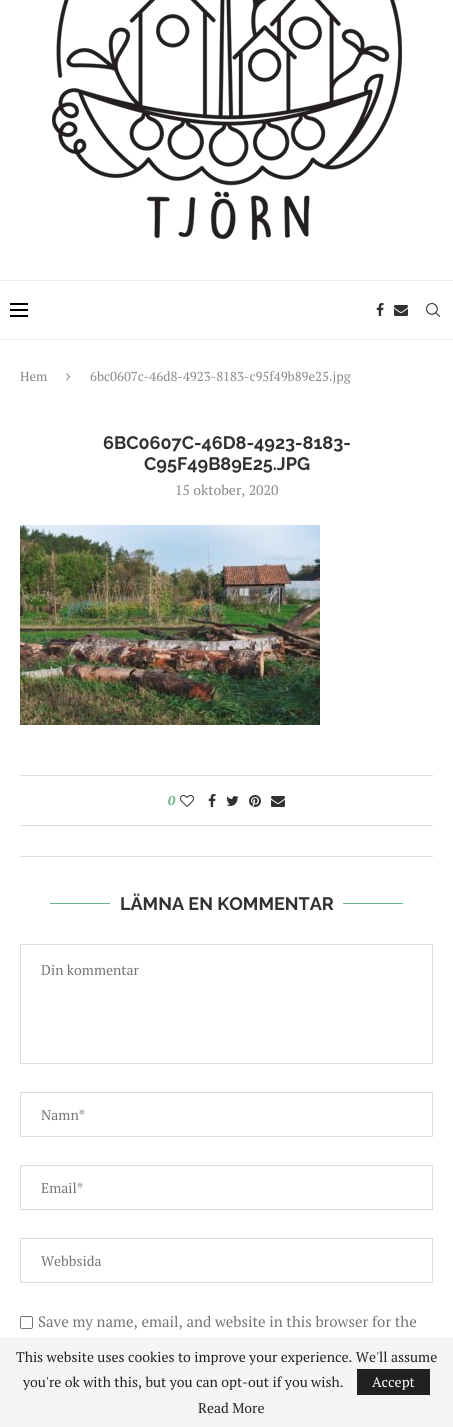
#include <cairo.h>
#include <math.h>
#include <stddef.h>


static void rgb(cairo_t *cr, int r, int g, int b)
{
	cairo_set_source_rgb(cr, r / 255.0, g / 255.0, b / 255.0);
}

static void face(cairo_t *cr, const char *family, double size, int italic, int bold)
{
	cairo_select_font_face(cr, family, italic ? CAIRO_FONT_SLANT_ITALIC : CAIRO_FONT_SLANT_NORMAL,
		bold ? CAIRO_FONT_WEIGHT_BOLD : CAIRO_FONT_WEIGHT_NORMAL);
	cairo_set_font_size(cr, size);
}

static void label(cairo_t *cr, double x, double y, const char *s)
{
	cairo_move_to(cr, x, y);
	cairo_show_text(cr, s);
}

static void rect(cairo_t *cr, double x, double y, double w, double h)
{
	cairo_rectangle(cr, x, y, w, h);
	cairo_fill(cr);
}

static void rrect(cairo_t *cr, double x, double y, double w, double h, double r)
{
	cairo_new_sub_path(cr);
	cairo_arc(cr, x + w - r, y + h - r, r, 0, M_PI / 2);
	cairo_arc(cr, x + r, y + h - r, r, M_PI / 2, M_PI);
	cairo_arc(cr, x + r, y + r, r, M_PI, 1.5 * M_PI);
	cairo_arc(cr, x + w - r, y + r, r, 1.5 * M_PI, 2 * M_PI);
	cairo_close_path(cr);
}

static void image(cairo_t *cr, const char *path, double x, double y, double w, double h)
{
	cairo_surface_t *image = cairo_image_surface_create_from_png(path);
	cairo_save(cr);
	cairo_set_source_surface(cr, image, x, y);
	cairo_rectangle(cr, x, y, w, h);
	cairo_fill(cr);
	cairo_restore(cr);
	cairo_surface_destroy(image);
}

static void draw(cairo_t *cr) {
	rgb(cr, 255, 255, 255);
	cairo_paint(cr);
	image(cr, "image0.png", 52, 0, 350, 240);
	rgb(cr, 236, 236, 236);
	rect(cr, 0, 280, 453, 1);
	rect(cr, 0, 339, 453, 1);
	rgb(cr, 0, 0, 0);
	rect(cr, 10, 303, 18, 2);
	rect(cr, 10, 309, 18, 2);
	rect(cr, 10, 315, 18, 2);
	image(cr, "image1.png", 376, 303, 8, 13);
	image(cr, "image2.png", 394, 305, 14, 11);
	image(cr, "image3.png", 426, 303, 14, 14);
	face(cr, "PT Serif", 13, 0, 0);
	rgb(cr, 136, 136, 136);
	label(cr, 20, 381, "Hem");
	image(cr, "image4.png", 66, 373, 5, 8);
	label(cr, 90, 381, "6bc0607c-46d8-4923-8183-c95f49b89e25.jpg");
	face(cr, "Raleway", 18, 0, 1);
	rgb(cr, 49, 49, 49);
	label(cr, 103, 449, "6BC0607C-46D8-4923-8183-");
	label(cr, 144, 470, "C95F49B89E25.JPG");
	face(cr, "PT Serif", 14, 0, 0);
	rgb(cr, 136, 136, 136);
	label(cr, 175, 495, "15 oktober, 2020");
	image(cr, "image5.png", 20, 525, 300, 200);
	rgb(cr, 222, 222, 222);
	rect(cr, 20, 775, 413, 1);
	face(cr, "PT Serif", 13, 1, 1);
	rgb(cr, 110, 180, 140);
	label(cr, 168, 805, "0");
	image(cr, "image6.png", 180, 795, 14, 12);
	image(cr, "image1.png", 208, 794, 8, 13);
	image(cr, "image7.png", 226, 796, 13, 10);
	image(cr, "image8.png", 249, 795, 12, 12);
	image(cr, "image2.png", 271, 796, 14, 11);
	rgb(cr, 222, 222, 222);
	rect(cr, 20, 825, 413, 1);
	rect(cr, 20, 856, 413, 1);
	rgb(cr, 110, 180, 140);
	rect(cr, 50, 903, 60, 1);
	face(cr, "Raleway", 18, 0, 1);
	rgb(cr, 49, 49, 49);
	label(cr, 120, 910, "LÄMNA EN KOMMENTAR");
	rgb(cr, 110, 180, 140);
	rect(cr, 343, 903, 60, 1);
	cairo_rectangle(cr, 20.5, 944.5, 412, 119);
	rgb(cr, 222, 222, 222);
	cairo_set_line_width(cr, 1);
	cairo_stroke(cr);
	face(cr, "PT Serif", 14, 0, 0);
	rgb(cr, 117, 117, 117);
	label(cr, 41, 975, "Din kommentar");
	cairo_rectangle(cr, 20.5, 1092.5, 412, 44);
	rgb(cr, 222, 222, 222);
	cairo_stroke(cr);
	rgb(cr, 117, 117, 117);
	label(cr, 41, 1120, "Namn*");
	cairo_rectangle(cr, 20.5, 1165.5, 412, 44);
	rgb(cr, 222, 222, 222);
	cairo_stroke(cr);
	rgb(cr, 117, 117, 117);
	label(cr, 41, 1193, "Email*");
	cairo_rectangle(cr, 20.5, 1238.5, 412, 44);
	rgb(cr, 222, 222, 222);
	cairo_stroke(cr);
	rgb(cr, 117, 117, 117);
	label(cr, 41, 1266, "Webbsida");
	rrect(cr, 20.5, 1316.5, 12, 12, 1.5);
	rgb(cr, 118, 118, 118);
	cairo_stroke(cr);
	face(cr, "PT Serif", 15, 0, 0);
	rgb(cr, 117, 117, 117);
	label(cr, 38, 1327, "Save my name, email, and website in this browser for the");
	rgb(cr, 245, 245, 245);
	rect(cr, 0, 1337, 453, 90);
	face(cr, "PT Serif", 14, 0, 0);
	rgb(cr, 33, 33, 33);
	label(cr, 16, 1362, "This website uses cookies to improve your experience. We'll assume");
	label(cr, 23, 1387, "you're ok with this, but you can opt-out if you wish.");
	rect(cr, 357, 1369, 73, 26);
	rgb(cr, 255, 255, 255);
	label(cr, 372, 1387, "Accept");
	rgb(cr, 33, 33, 33);
	label(cr, 198, 1413, "Read More");
}

int main(void) {
	cairo_surface_t *surface = cairo_image_surface_create(CAIRO_FORMAT_RGB24, 453, 1427);
	cairo_t *cr = cairo_create(surface);
	cairo_font_options_t *options = cairo_font_options_create();
	cairo_font_options_set_hint_metrics(options, CAIRO_HINT_METRICS_OFF);
	cairo_font_options_set_hint_style(options, CAIRO_HINT_STYLE_NONE);
	cairo_set_font_options(cr, options);
	cairo_set_miter_limit(cr, 4);
	draw(cr);
	cairo_surface_write_to_png(surface, "render.png");
	cairo_font_options_destroy(options);
	cairo_destroy(cr);
	cairo_surface_destroy(surface);
	return 0;
}
